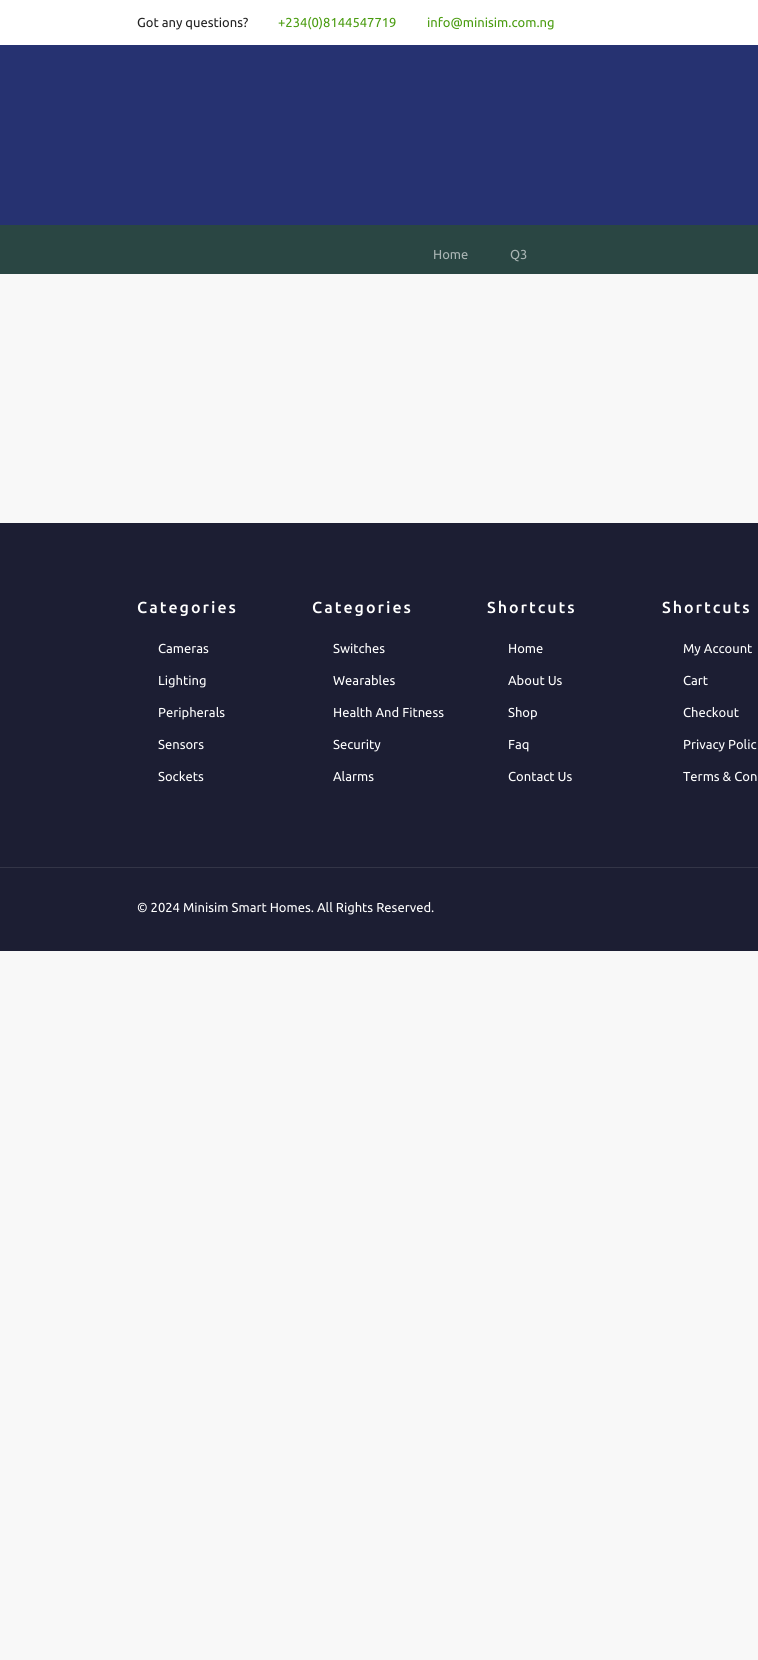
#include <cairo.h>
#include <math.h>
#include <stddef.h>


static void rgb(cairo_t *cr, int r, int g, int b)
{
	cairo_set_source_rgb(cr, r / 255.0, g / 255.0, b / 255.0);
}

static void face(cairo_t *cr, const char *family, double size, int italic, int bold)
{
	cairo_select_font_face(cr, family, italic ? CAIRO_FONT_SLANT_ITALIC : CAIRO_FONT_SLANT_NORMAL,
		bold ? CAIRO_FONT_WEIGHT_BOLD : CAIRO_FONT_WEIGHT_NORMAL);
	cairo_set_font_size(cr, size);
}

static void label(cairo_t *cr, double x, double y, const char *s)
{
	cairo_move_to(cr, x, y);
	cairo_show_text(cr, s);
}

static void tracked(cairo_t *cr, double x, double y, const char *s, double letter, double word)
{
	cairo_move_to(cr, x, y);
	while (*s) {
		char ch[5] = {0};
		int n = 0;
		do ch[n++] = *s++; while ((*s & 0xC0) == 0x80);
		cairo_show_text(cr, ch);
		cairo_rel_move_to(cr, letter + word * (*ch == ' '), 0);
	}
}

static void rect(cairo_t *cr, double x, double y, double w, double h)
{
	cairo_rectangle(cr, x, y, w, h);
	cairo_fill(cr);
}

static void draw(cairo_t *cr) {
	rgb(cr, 248, 248, 248);
	cairo_paint(cr);
	rgb(cr, 38, 50, 113);
	rect(cr, 0, 45, 758, 180);
	rgb(cr, 255, 255, 255);
	rect(cr, 0, 0, 758, 45);
	face(cr, "Ubuntu", 13, 0, 0);
	rgb(cr, 34, 34, 34);
	label(cr, 137, 27, "Got any questions?");
	rgb(cr, 74, 156, 16);
	label(cr, 278, 27, "+234(0)8144547719");
	label(cr, 427, 27, "info@minisim.com.ng");
	rgb(cr, 42, 70, 67);
	rect(cr, 0, 225, 758, 49);
	rgb(cr, 170, 181, 180);
	label(cr, 433, 259, "Home");
	label(cr, 510, 259, "Q3");
	rgb(cr, 28, 30, 51);
	rect(cr, 0, 523, 758, 428);
	face(cr, "Ubuntu Medium", 16, 0, 0);
	rgb(cr, 255, 255, 255);
	tracked(cr, 137, 613, "Categories", 2, 0);
	face(cr, "Ubuntu", 13, 0, 0);
	label(cr, 158, 653, "Cameras");
	label(cr, 158, 685, "Lighting");
	label(cr, 158, 717, "Peripherals");
	label(cr, 158, 749, "Sensors");
	label(cr, 158, 781, "Sockets");
	face(cr, "Ubuntu Medium", 16, 0, 0);
	tracked(cr, 312, 613, "Categories", 2, 0);
	face(cr, "Ubuntu", 13, 0, 0);
	label(cr, 333, 653, "Switches");
	label(cr, 333, 685, "Wearables");
	label(cr, 333, 717, "Health And Fitness");
	label(cr, 333, 749, "Security");
	label(cr, 333, 781, "Alarms");
	face(cr, "Ubuntu Medium", 16, 0, 0);
	tracked(cr, 487, 613, "Shortcuts", 2, 0);
	face(cr, "Ubuntu", 13, 0, 0);
	label(cr, 508, 653, "Home");
	label(cr, 508, 685, "About Us");
	label(cr, 508, 717, "Shop");
	label(cr, 508, 749, "Faq");
	label(cr, 508, 781, "Contact Us");
	face(cr, "Ubuntu Medium", 16, 0, 0);
	tracked(cr, 662, 613, "Shortcuts", 2, 0);
	face(cr, "Ubuntu", 13, 0, 0);
	label(cr, 683, 653, "My Account");
	label(cr, 683, 685, "Cart");
	label(cr, 683, 717, "Checkout");
	label(cr, 683, 749, "Privacy Polic");
	label(cr, 683, 781, "Terms & Con");
	rgb(cr, 51, 53, 71);
	rect(cr, 0, 867, 758, 1);
	rgb(cr, 255, 255, 255);
	label(cr, 137, 912, "© 2024 Minisim Smart Homes. All Rights Reserved.");
}

int main(void) {
	cairo_surface_t *surface = cairo_image_surface_create(CAIRO_FORMAT_RGB24, 758, 1660);
	cairo_t *cr = cairo_create(surface);
	cairo_font_options_t *options = cairo_font_options_create();
	cairo_font_options_set_hint_metrics(options, CAIRO_HINT_METRICS_OFF);
	cairo_font_options_set_hint_style(options, CAIRO_HINT_STYLE_NONE);
	cairo_set_font_options(cr, options);
	cairo_set_miter_limit(cr, 4);
	draw(cr);
	cairo_surface_write_to_png(surface, "render.png");
	cairo_font_options_destroy(options);
	cairo_destroy(cr);
	cairo_surface_destroy(surface);
	return 0;
}
